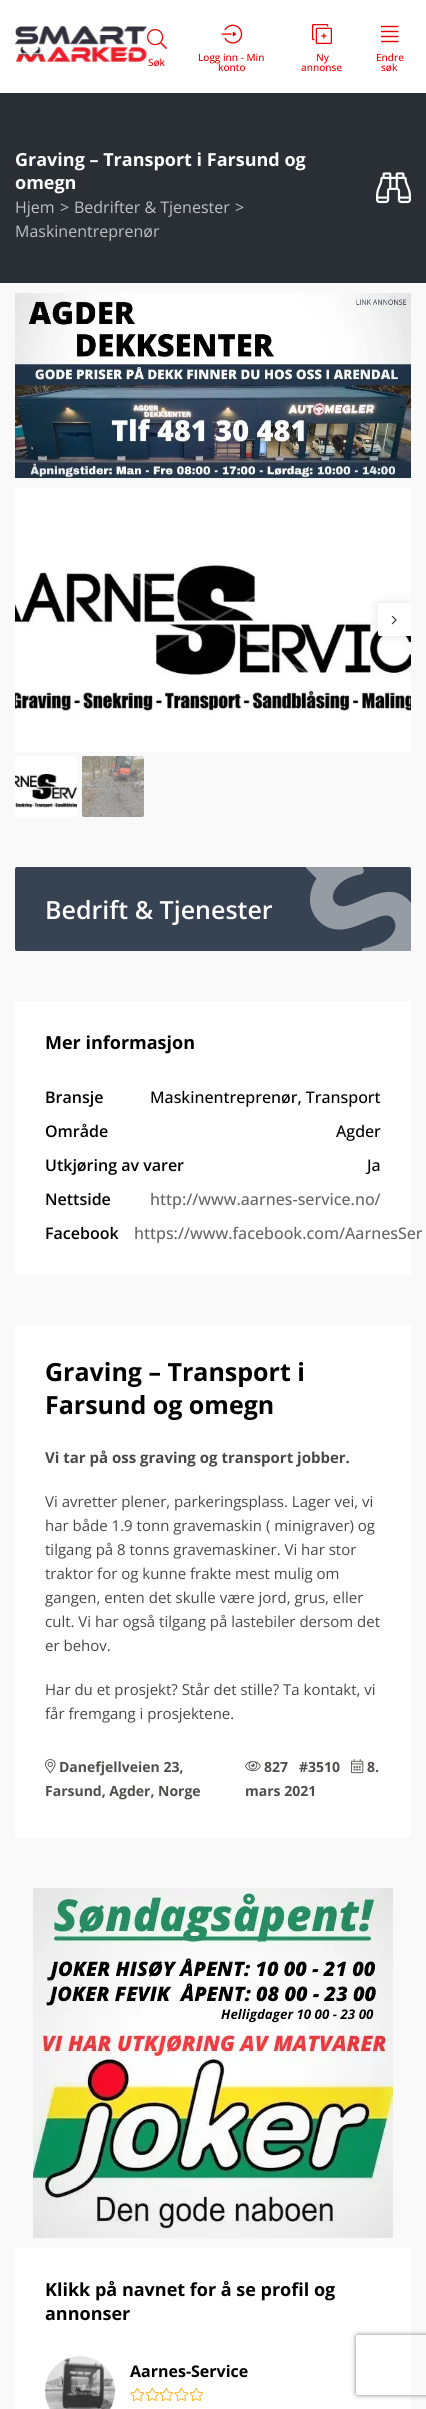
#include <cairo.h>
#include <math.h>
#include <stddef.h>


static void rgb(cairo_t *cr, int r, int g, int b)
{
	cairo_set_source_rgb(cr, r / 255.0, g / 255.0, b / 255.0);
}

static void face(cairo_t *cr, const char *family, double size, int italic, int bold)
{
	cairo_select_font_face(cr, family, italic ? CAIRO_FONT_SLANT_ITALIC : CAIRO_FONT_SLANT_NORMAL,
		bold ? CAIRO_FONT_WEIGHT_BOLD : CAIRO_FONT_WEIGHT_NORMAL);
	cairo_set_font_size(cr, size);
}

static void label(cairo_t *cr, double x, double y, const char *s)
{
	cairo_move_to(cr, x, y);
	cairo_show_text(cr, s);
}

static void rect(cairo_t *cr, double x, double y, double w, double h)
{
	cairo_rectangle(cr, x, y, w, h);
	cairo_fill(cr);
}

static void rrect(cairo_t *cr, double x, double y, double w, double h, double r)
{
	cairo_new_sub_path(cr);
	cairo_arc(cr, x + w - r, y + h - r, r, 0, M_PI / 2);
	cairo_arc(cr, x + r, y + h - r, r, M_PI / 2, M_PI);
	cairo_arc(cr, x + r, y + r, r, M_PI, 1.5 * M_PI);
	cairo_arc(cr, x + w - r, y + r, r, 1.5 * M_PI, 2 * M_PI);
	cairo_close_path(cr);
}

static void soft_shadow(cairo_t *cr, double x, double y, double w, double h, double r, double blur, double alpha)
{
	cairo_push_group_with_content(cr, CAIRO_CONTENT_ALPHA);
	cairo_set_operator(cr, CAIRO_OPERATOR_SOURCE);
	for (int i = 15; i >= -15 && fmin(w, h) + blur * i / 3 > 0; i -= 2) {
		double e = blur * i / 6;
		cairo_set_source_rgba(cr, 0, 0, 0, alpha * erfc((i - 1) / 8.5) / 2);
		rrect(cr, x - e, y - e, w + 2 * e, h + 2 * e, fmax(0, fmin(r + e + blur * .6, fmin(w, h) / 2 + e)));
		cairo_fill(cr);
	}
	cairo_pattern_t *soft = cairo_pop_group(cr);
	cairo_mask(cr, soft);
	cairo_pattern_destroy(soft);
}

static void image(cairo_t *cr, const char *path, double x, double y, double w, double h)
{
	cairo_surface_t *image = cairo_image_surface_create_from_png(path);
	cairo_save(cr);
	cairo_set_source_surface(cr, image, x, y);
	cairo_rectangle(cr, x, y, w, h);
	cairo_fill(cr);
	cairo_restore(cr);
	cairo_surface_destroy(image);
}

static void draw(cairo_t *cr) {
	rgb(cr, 249, 249, 249);
	cairo_paint(cr);
	rgb(cr, 42, 47, 54);
	rect(cr, 0, 93, 426, 190);
	rgb(cr, 23, 23, 23);
	soft_shadow(cr, 0, 4, 426, 93, 0, 2, 0.06);
	rgb(cr, 255, 255, 255);
	rect(cr, 0, 0, 426, 93);
	image(cr, "image0.png", 15, 26, 132, 37);
	image(cr, "image1.png", 147, 29, 20, 20);
	face(cr, "Open Sans Medium", 10, 0, 0);
	rgb(cr, 237, 0, 0);
	label(cr, 148, 66, "Søk");
	image(cr, "image2.png", 221, 24, 22, 20);
	label(cr, 198, 61, "Logg inn - Min");
	label(cr, 218, 71, "konto");
	image(cr, "image3.png", 312, 24, 20, 20);
	label(cr, 316, 61, "Ny");
	label(cr, 301, 71, "annonse");
	image(cr, "image4.png", 381, 25, 18, 18);
	label(cr, 376, 61, "Endre");
	label(cr, 381, 71, "søk");
	face(cr, "Open Sans", 18, 0, 1);
	rgb(cr, 255, 255, 255);
	label(cr, 15, 166, "Graving – Transport i Farsund og");
	label(cr, 15, 189, "omegn");
	face(cr, "Open Sans", 16, 0, 0);
	rgb(cr, 191, 193, 195);
	label(cr, 15, 213, "Hjem");
	label(cr, 60, 213, ">");
	label(cr, 74, 213, "Bedrifter & Tjenester");
	label(cr, 235, 213, ">");
	label(cr, 15, 237, "Maskinentreprenør");
	image(cr, "image5.png", 376, 172, 35, 32);
	image(cr, "image6.png", 15, 293, 396, 185);
	image(cr, "image7.png", 15, 488, 396, 264);
	cairo_save(cr);
	rrect(cr, 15, 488, 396, 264, 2);
	cairo_clip(cr);
	rgb(cr, 0, 0, 0);
	soft_shadow(cr, 378, 603, 33, 33, 2, 5, 0.12);
	cairo_restore(cr);
	rgb(cr, 255, 255, 255);
	cairo_new_path(cr);
	cairo_move_to(cr, 380, 603);
	cairo_line_to(cr, 411, 603);
	cairo_line_to(cr, 411, 636);
	cairo_line_to(cr, 380, 636);
	cairo_curve_to(cr, 379, 636, 378, 635, 378, 634);
	cairo_line_to(cr, 378, 605);
	cairo_curve_to(cr, 378, 604, 379, 603, 380, 603);
	cairo_close_path(cr);
	cairo_fill(cr);
	image(cr, "image8.png", 391, 615, 6, 10);
	image(cr, "image9.png", 15, 756, 62, 61);
	image(cr, "image10.png", 82, 756, 62, 61);
	rgb(cr, 55, 66, 83);
	rrect(cr, 15, 867, 396, 84, 2);
	cairo_fill(cr);
	face(cr, "Open Sans SemiBold", 25, 0, 0);
	rgb(cr, 255, 255, 255);
	label(cr, 45, 919, "Bedrift & Tjenester");
	image(cr, "image11.png", 305, 867, 106, 84);
	rrect(cr, 15, 1001, 396, 274, 2);
	cairo_fill(cr);
	face(cr, "Open Sans", 18, 0, 1);
	rgb(cr, 0, 0, 0);
	label(cr, 45, 1049, "Mer informasjon");
	face(cr, "Open Sans SemiBold", 16, 0, 0);
	label(cr, 45, 1103, "Bransje");
	face(cr, "Open Sans Medium", 16, 0, 0);
	label(cr, 150, 1103, "Maskinentreprenør, Transport");
	face(cr, "Open Sans SemiBold", 16, 0, 0);
	label(cr, 45, 1137, "Område");
	face(cr, "Open Sans Medium", 16, 0, 0);
	label(cr, 336, 1137, "Agder");
	face(cr, "Open Sans SemiBold", 16, 0, 0);
	label(cr, 45, 1171, "Utkjøring av varer");
	face(cr, "Open Sans Medium", 16, 0, 0);
	label(cr, 367, 1171, "Ja");
	face(cr, "Open Sans SemiBold", 16, 0, 0);
	label(cr, 45, 1205, "Nettside");
	face(cr, "Open Sans Medium", 16, 0, 0);
	rgb(cr, 102, 102, 102);
	label(cr, 150, 1205, "http://www.aarnes-service.no/");
	face(cr, "Open Sans SemiBold", 16, 0, 0);
	rgb(cr, 0, 0, 0);
	label(cr, 45, 1239, "Facebook");
	face(cr, "Open Sans Medium", 16, 0, 0);
	rgb(cr, 102, 102, 102);
	label(cr, 134, 1239, "https://www.facebook.com/AarnesSer");
	rgb(cr, 255, 255, 255);
	rrect(cr, 15, 1325, 396, 513, 2);
	cairo_fill(cr);
	face(cr, "Open Sans", 25, 0, 1);
	rgb(cr, 0, 0, 0);
	label(cr, 45, 1381, "Graving – Transport i");
	label(cr, 45, 1414, "Farsund og omegn");
	face(cr, "Open Sans", 15, 0, 1);
	rgb(cr, 72, 72, 72);
	label(cr, 45, 1463, "Vi tar på oss graving og transport jobber.");
	face(cr, "Open Sans", 15, 0, 0);
	label(cr, 45, 1507, "Vi avretter plener, parkeringsplass. Lager vei, vi");
	label(cr, 45, 1531, "har både 1.9 tonn gravemaskin ( minigraver) og");
	label(cr, 45, 1555, "tilgang på 8 tonns gravemaskiner. Vi har stor");
	label(cr, 45, 1579, "traktor for og kunne frakte mest mulig om");
	label(cr, 45, 1603, "gangen, enten det skulle være jord, grus, eller");
	label(cr, 45, 1627, "cult. Vi har også tilgang på lastebiler dersom det");
	label(cr, 45, 1651, "er behov.");
	label(cr, 45, 1695, "Har du et prosjekt? Står det stille? Ta kontakt, vi");
	label(cr, 45, 1719, "får fremgang i prosjektene.");
	image(cr, "image12.png", 45, 1759, 11, 15);
	face(cr, "Open Sans", 14, 0, 1);
	rgb(cr, 82, 77, 77);
	label(cr, 59, 1772, "Danefjellveien 23,");
	label(cr, 45, 1796, "Farsund, Agder, Norge");
	image(cr, "image13.png", 245, 1761, 16, 11);
	label(cr, 264, 1772, "827");
	label(cr, 299, 1772, "#3510");
	image(cr, "image14.png", 351, 1759, 13, 15);
	label(cr, 367, 1772, "8.");
	label(cr, 245, 1796, "mars 2021");
	image(cr, "image15.png", 33, 1888, 360, 350);
	rgb(cr, 255, 255, 255);
	rrect(cr, 15, 2248, 396, 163, 2);
	cairo_fill(cr);
	face(cr, "Open Sans", 18, 0, 1);
	rgb(cr, 0, 0, 0);
	label(cr, 45, 2296, "Klikk på navnet for å se profil og");
	label(cr, 45, 2320, "annonser");
	image(cr, "image16.png", 45, 2356, 70, 53);
	face(cr, "Open Sans", 16, 0, 1);
	label(cr, 130, 2377, "Aarnes-Service");
	image(cr, "image17.png", 130, 2388, 15, 13);
	image(cr, "image17.png", 145, 2388, 15, 13);
	image(cr, "image18.png", 159, 2388, 15, 13);
	image(cr, "image17.png", 174, 2388, 15, 13);
	image(cr, "image17.png", 189, 2388, 15, 13);
	cairo_save(cr);
	cairo_set_fill_rule(cr, CAIRO_FILL_RULE_EVEN_ODD);
	cairo_new_path(cr);
	cairo_move_to(cr, 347, 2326);
	cairo_line_to(cr, 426, 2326);
	cairo_line_to(cr, 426, 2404);
	cairo_line_to(cr, 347, 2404);
	cairo_close_path(cr);
	cairo_move_to(cr, 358, 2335);
	cairo_line_to(cr, 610, 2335);
	cairo_curve_to(cr, 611, 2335, 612, 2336, 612, 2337);
	cairo_line_to(cr, 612, 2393);
	cairo_curve_to(cr, 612, 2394, 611, 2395, 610, 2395);
	cairo_line_to(cr, 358, 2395);
	cairo_curve_to(cr, 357, 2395, 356, 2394, 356, 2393);
	cairo_line_to(cr, 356, 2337);
	cairo_curve_to(cr, 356, 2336, 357, 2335, 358, 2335);
	cairo_close_path(cr);
	cairo_clip(cr);
	rgb(cr, 128, 128, 128);
	soft_shadow(cr, 356, 2335, 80, 60, 2, 2.5, 1);
	cairo_restore(cr);
}

int main(void) {
	cairo_surface_t *surface = cairo_image_surface_create(CAIRO_FORMAT_RGB24, 426, 2409);
	cairo_t *cr = cairo_create(surface);
	cairo_font_options_t *options = cairo_font_options_create();
	cairo_font_options_set_hint_metrics(options, CAIRO_HINT_METRICS_OFF);
	cairo_font_options_set_hint_style(options, CAIRO_HINT_STYLE_NONE);
	cairo_set_font_options(cr, options);
	cairo_set_miter_limit(cr, 4);
	draw(cr);
	cairo_surface_write_to_png(surface, "render.png");
	cairo_font_options_destroy(options);
	cairo_destroy(cr);
	cairo_surface_destroy(surface);
	return 0;
}
